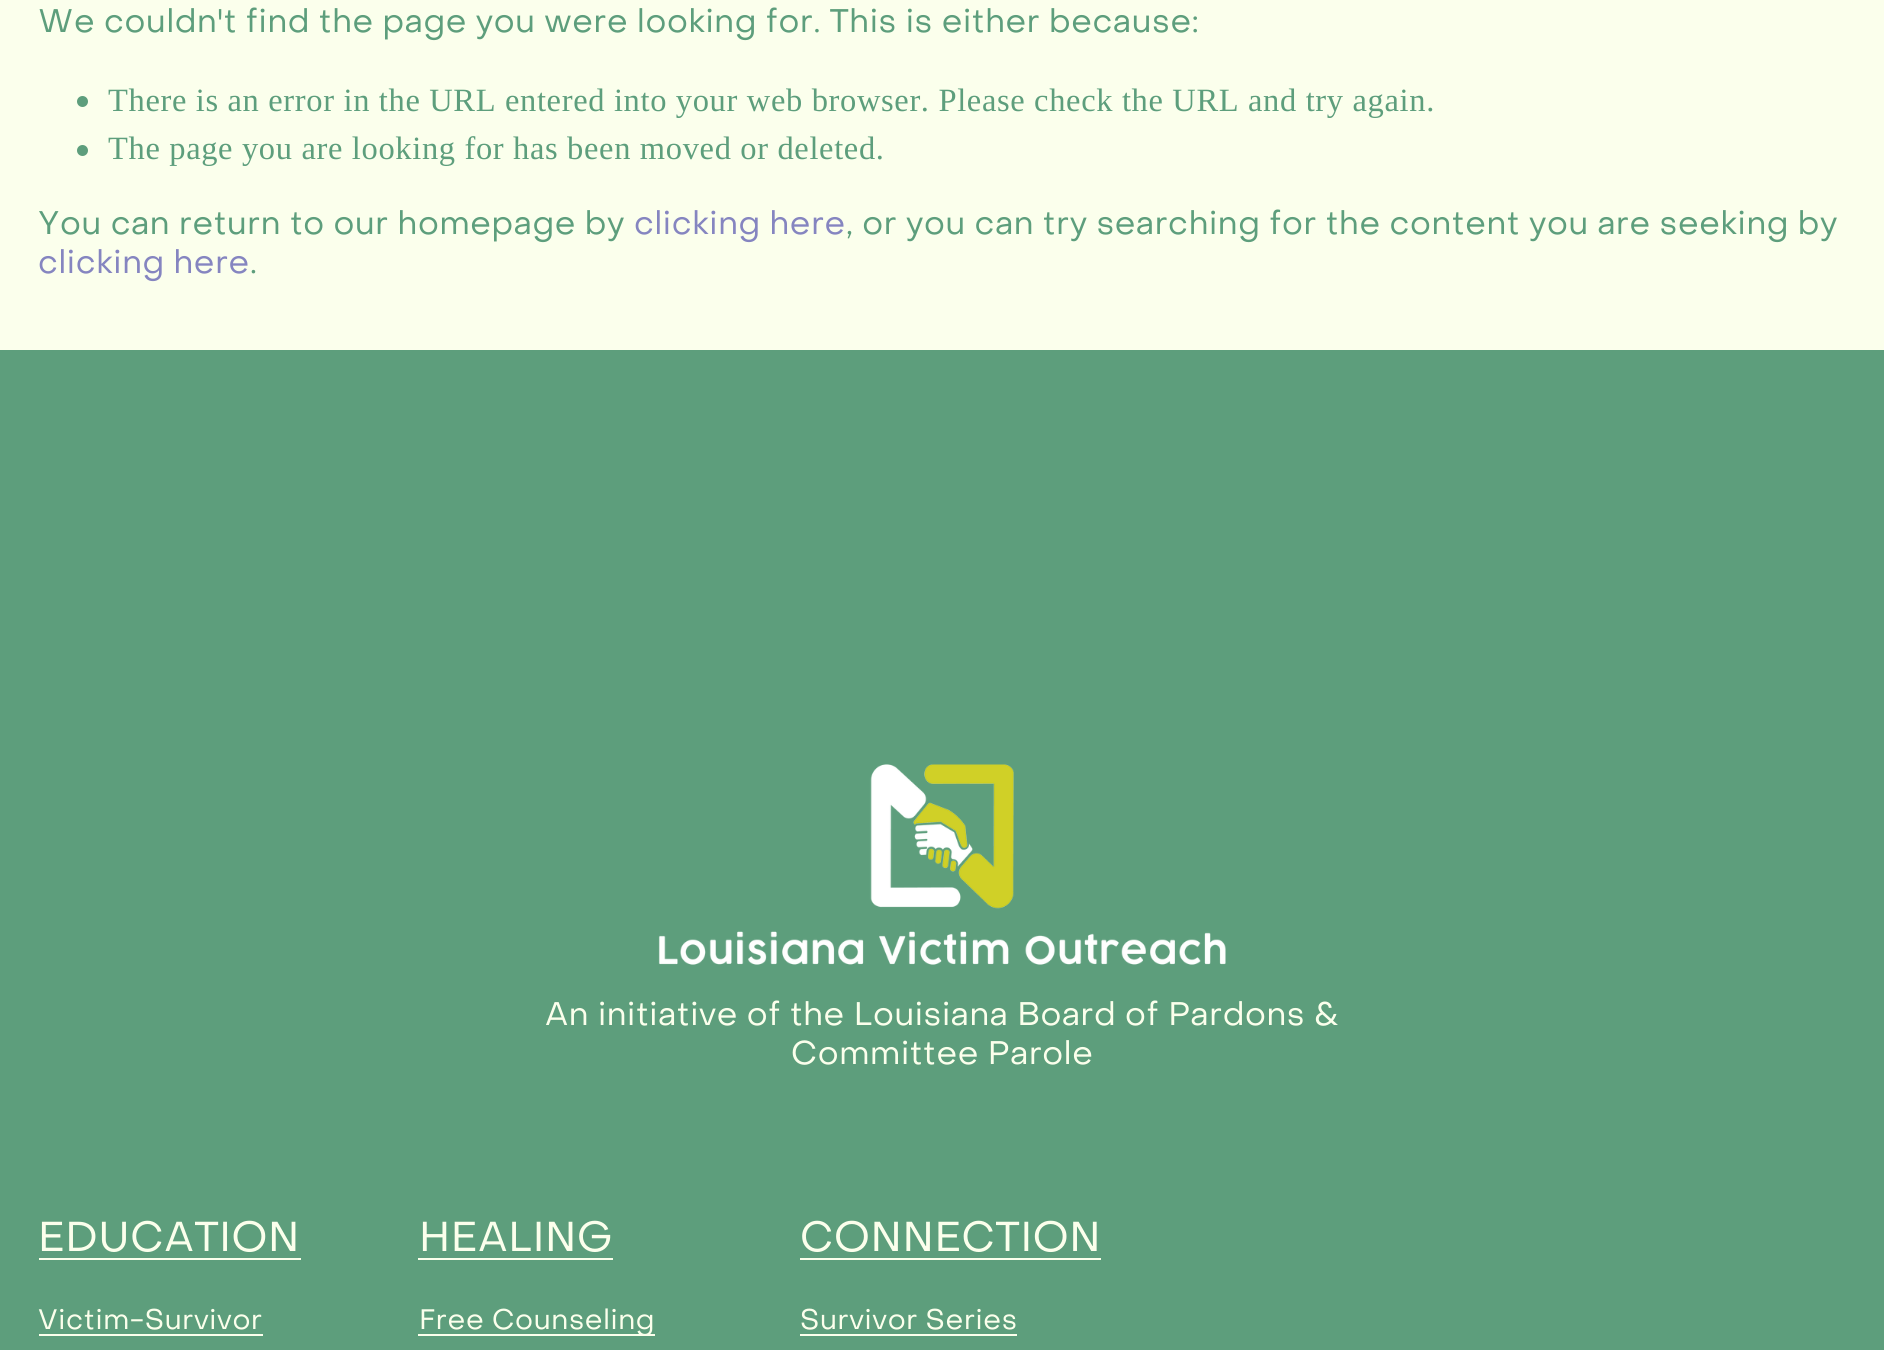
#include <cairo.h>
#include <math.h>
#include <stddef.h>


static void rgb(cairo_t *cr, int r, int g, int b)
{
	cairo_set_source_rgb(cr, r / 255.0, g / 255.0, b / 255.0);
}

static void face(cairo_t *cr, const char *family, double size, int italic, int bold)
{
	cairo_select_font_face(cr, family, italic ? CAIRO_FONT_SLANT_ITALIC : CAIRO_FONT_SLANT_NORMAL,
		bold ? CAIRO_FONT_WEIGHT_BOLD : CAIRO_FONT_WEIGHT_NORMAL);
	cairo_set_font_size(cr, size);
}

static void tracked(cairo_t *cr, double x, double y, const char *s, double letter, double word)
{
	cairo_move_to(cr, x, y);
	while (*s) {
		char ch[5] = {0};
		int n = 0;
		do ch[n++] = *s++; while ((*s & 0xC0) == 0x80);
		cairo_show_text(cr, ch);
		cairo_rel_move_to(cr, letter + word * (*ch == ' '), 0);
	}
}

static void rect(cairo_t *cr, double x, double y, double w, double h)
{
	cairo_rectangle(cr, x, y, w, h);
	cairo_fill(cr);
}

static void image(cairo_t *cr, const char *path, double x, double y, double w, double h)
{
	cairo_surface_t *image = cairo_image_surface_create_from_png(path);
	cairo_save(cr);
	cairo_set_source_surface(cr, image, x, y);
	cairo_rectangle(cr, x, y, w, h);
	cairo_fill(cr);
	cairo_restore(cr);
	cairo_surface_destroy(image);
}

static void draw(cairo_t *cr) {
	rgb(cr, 251, 255, 236);
	cairo_paint(cr);
	face(cr, "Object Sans", 32.5, 0, 0);
	rgb(cr, 93, 158, 124);
	tracked(cr, 38, 32, "We couldn't find the page you were looking for. This is either because:", 0.65, 0);
	cairo_new_path(cr);
	cairo_arc(cr, 82.5, 101.5, 5.5, 0, 2 * M_PI);
	cairo_fill(cr);
	face(cr, "Liberation Serif", 32.5, 0, 0);
	tracked(cr, 108, 111, "There is an error in the URL entered into your web browser. Please check the URL and try again.", 0.65, 0);
	cairo_new_path(cr);
	cairo_arc(cr, 82.5, 150.5, 5.5, 0, 2 * M_PI);
	cairo_fill(cr);
	tracked(cr, 108, 159, "The page you are looking for has been moved or deleted.", 0.65, 0);
	face(cr, "Object Sans", 32.5, 0, 0);
	tracked(cr, 38, 234, "You can return to our homepage by", 0.65, 0);
	rgb(cr, 133, 133, 192);
	tracked(cr, 634, 234, "clicking here", 0.65, 0);
	rgb(cr, 93, 158, 124);
	tracked(cr, 846, 234, ", or you can try searching for the content you are seeking by", 0.65, 0);
	rgb(cr, 133, 133, 192);
	tracked(cr, 38, 273, "clicking here", 0.65, 0);
	rgb(cr, 93, 158, 124);
	tracked(cr, 250, 273, ".", 0.65, 0);
	rect(cr, 0, 350, 1884, 1000);
	image(cr, "image0.png", 658, 764, 568, 201);
	rgb(cr, 251, 255, 236);
	tracked(cr, 545, 1025, "An initiative of the Louisiana Board of Pardons &", 0.65, 0);
	tracked(cr, 791, 1064, "Committee Parole", 0.65, 0);
	face(cr, "Object Sans", 41.5, 0, 0);
	tracked(cr, 38, 1251, "EDUCATION", 0.65, 0);
	rect(cr, 39, 1258, 262, 2);
	face(cr, "Object Sans", 28, 0, 0);
	tracked(cr, 38, 1329, "Victim-Survivor", 0.65, 0);
	rect(cr, 39, 1334, 224, 2);
	face(cr, "Object Sans", 41.5, 0, 0);
	tracked(cr, 419, 1251, "HEALING", 0.65, 0);
	rect(cr, 418, 1258, 195, 2);
	rect(cr, 418, 1334, 237, 2);
	face(cr, "Object Sans", 28, 0, 0);
	tracked(cr, 419, 1329, "Free Counseling", 0.65, 0);
	face(cr, "Object Sans", 41.5, 0, 0);
	tracked(cr, 800, 1251, "CONNECTION", 0.65, 0);
	rect(cr, 800, 1258, 301, 2);
	face(cr, "Object Sans", 28, 0, 0);
	tracked(cr, 800, 1329, "Survivor Series", 0.65, 0);
	rect(cr, 800, 1334, 217, 2);
}

int main(void) {
	cairo_surface_t *surface = cairo_image_surface_create(CAIRO_FORMAT_RGB24, 1884, 1350);
	cairo_t *cr = cairo_create(surface);
	cairo_font_options_t *options = cairo_font_options_create();
	cairo_font_options_set_hint_metrics(options, CAIRO_HINT_METRICS_OFF);
	cairo_font_options_set_hint_style(options, CAIRO_HINT_STYLE_NONE);
	cairo_set_font_options(cr, options);
	cairo_set_miter_limit(cr, 4);
	draw(cr);
	cairo_surface_write_to_png(surface, "render.png");
	cairo_font_options_destroy(options);
	cairo_destroy(cr);
	cairo_surface_destroy(surface);
	return 0;
}
